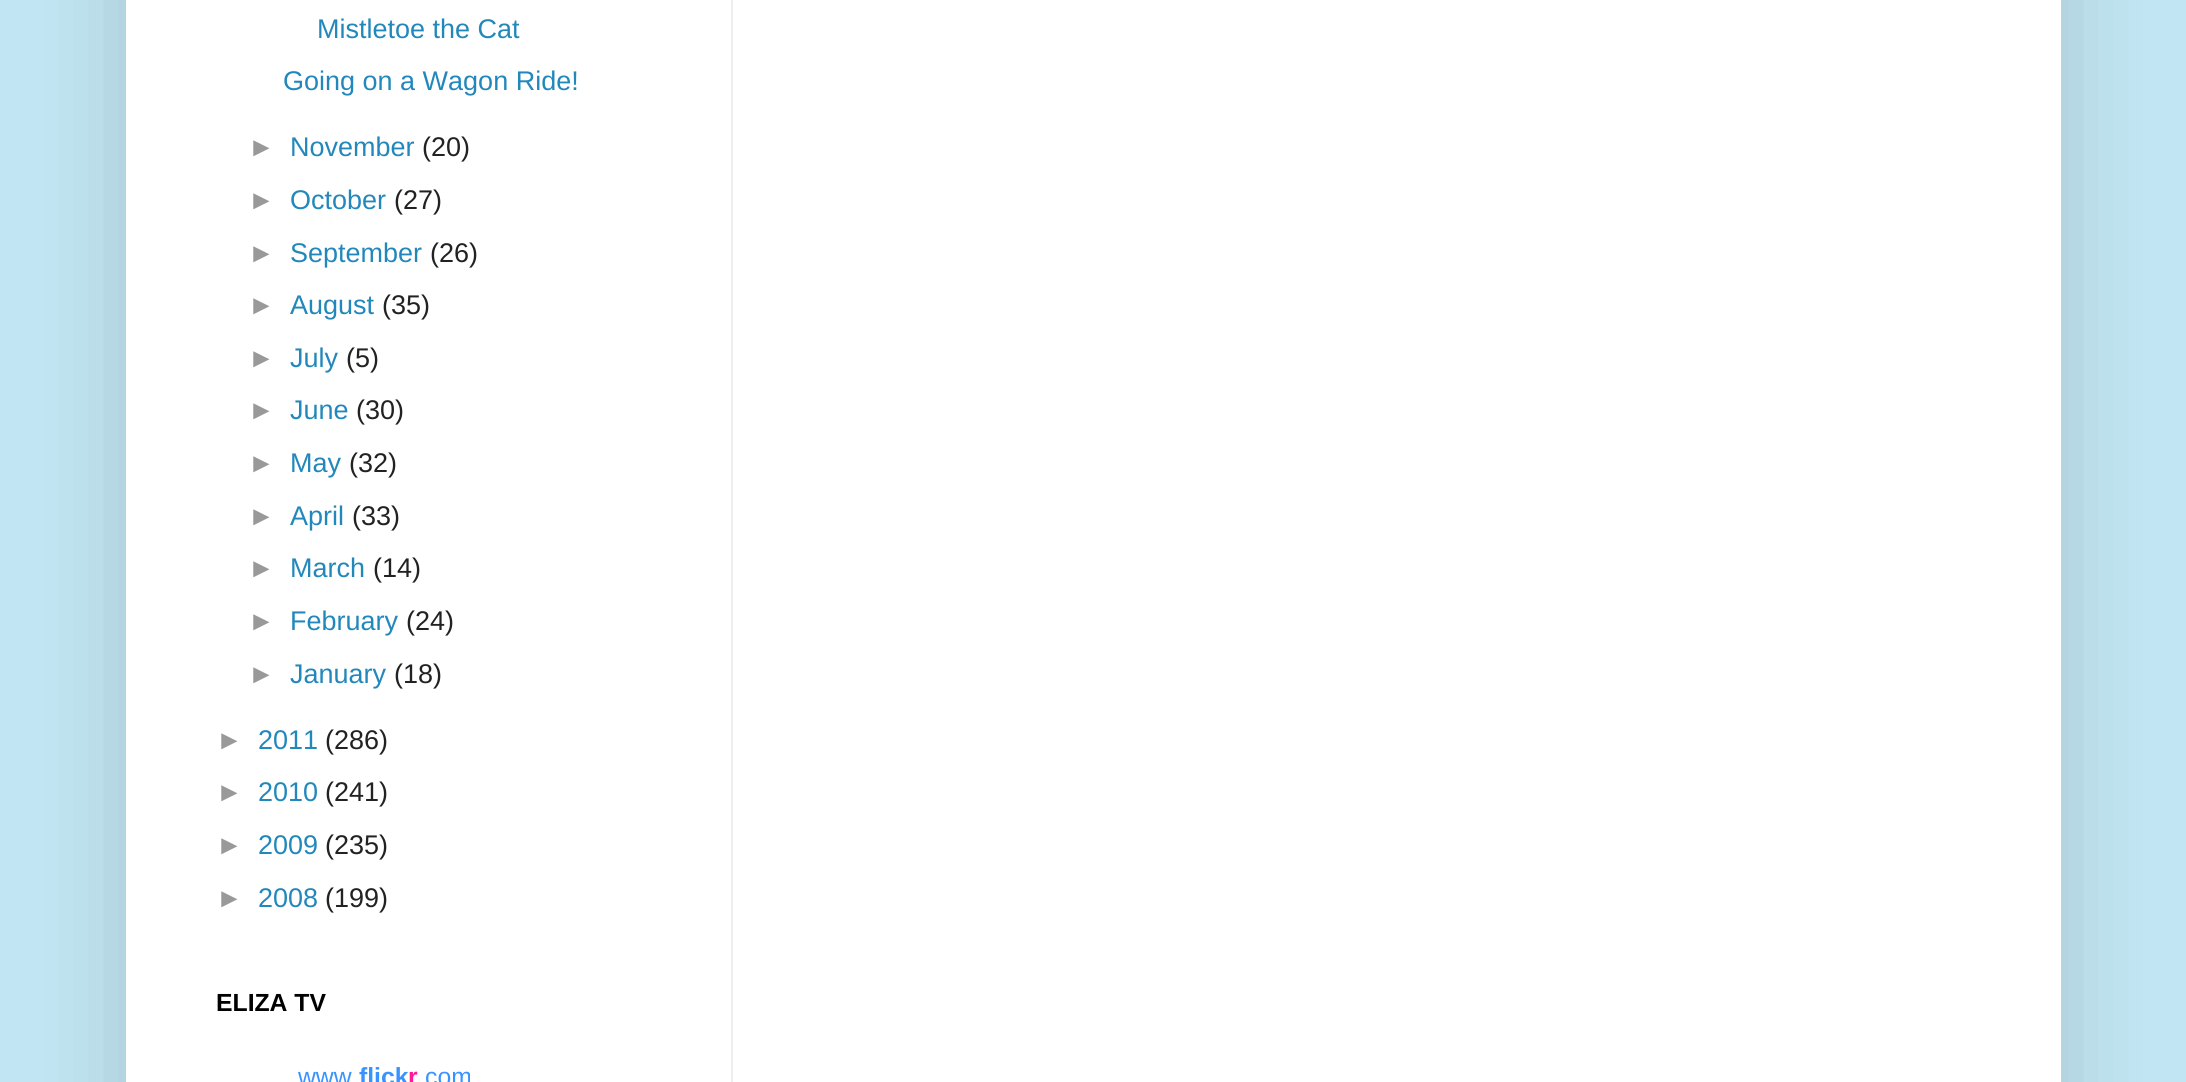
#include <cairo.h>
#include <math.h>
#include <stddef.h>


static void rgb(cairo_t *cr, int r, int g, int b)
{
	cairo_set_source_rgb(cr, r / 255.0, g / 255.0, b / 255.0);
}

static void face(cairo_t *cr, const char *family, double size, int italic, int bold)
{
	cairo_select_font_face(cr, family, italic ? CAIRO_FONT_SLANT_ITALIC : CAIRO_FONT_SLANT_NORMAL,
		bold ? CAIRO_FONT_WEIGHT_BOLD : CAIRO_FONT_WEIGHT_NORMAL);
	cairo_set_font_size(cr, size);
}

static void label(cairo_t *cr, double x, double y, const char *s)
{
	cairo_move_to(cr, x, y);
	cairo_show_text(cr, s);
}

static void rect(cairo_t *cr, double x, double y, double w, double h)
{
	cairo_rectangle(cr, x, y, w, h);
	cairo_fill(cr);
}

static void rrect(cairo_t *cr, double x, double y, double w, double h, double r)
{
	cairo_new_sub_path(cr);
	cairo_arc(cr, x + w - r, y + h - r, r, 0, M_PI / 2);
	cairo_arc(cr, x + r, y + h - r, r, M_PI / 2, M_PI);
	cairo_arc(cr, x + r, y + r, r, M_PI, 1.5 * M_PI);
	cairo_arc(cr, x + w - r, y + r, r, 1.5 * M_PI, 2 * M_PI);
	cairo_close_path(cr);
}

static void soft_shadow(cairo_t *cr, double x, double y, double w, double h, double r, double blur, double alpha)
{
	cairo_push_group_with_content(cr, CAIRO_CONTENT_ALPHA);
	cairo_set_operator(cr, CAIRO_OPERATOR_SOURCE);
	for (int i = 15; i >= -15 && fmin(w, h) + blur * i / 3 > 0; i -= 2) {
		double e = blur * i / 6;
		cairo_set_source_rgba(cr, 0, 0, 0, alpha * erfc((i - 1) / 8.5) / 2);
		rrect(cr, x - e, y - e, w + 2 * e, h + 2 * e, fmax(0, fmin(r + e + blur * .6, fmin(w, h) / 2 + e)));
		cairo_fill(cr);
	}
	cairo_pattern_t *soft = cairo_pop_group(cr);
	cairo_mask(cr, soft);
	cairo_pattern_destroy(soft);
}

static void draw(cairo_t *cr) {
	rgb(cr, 193, 229, 242);
	cairo_paint(cr);
	rgb(cr, 0, 0, 0);
	soft_shadow(cr, 126, -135, 1935, 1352, 0, 45, 0.15);
	rgb(cr, 255, 255, 255);
	rect(cr, 126, 0, 1935, 1082);
	face(cr, "Liberation Sans", 27, 0, 0);
	rgb(cr, 34, 136, 187);
	label(cr, 317, 38, "Mistletoe the Cat");
	label(cr, 283, 90, "Going on a Wagon Ride!");
	rgb(cr, 153, 153, 153);
	label(cr, 248, 156, "►");
	rgb(cr, 34, 136, 187);
	label(cr, 290, 156, "November");
	rgb(cr, 34, 34, 34);
	label(cr, 422, 156, "(20)");
	rgb(cr, 153, 153, 153);
	label(cr, 248, 209, "►");
	rgb(cr, 34, 136, 187);
	label(cr, 290, 209, "October");
	rgb(cr, 34, 34, 34);
	label(cr, 394, 209, "(27)");
	rgb(cr, 153, 153, 153);
	label(cr, 248, 262, "►");
	rgb(cr, 34, 136, 187);
	label(cr, 290, 262, "September");
	rgb(cr, 34, 34, 34);
	label(cr, 430, 262, "(26)");
	rgb(cr, 153, 153, 153);
	label(cr, 248, 314, "►");
	rgb(cr, 34, 136, 187);
	label(cr, 290, 314, "August");
	rgb(cr, 34, 34, 34);
	label(cr, 382, 314, "(35)");
	rgb(cr, 153, 153, 153);
	label(cr, 248, 367, "►");
	rgb(cr, 34, 136, 187);
	label(cr, 290, 367, "July");
	rgb(cr, 34, 34, 34);
	label(cr, 346, 367, "(5)");
	rgb(cr, 153, 153, 153);
	label(cr, 248, 419, "►");
	rgb(cr, 34, 136, 187);
	label(cr, 290, 419, "June");
	rgb(cr, 34, 34, 34);
	label(cr, 356, 419, "(30)");
	rgb(cr, 153, 153, 153);
	label(cr, 248, 472, "►");
	rgb(cr, 34, 136, 187);
	label(cr, 290, 472, "May");
	rgb(cr, 34, 34, 34);
	label(cr, 349, 472, "(32)");
	rgb(cr, 153, 153, 153);
	label(cr, 248, 525, "►");
	rgb(cr, 34, 136, 187);
	label(cr, 290, 525, "April");
	rgb(cr, 34, 34, 34);
	label(cr, 352, 525, "(33)");
	rgb(cr, 153, 153, 153);
	label(cr, 248, 577, "►");
	rgb(cr, 34, 136, 187);
	label(cr, 290, 577, "March");
	rgb(cr, 34, 34, 34);
	label(cr, 373, 577, "(14)");
	rgb(cr, 153, 153, 153);
	label(cr, 248, 630, "►");
	rgb(cr, 34, 136, 187);
	label(cr, 290, 630, "February");
	rgb(cr, 34, 34, 34);
	label(cr, 406, 630, "(24)");
	rgb(cr, 153, 153, 153);
	label(cr, 248, 683, "►");
	rgb(cr, 34, 136, 187);
	label(cr, 290, 683, "January");
	rgb(cr, 34, 34, 34);
	label(cr, 394, 683, "(18)");
	rgb(cr, 153, 153, 153);
	label(cr, 216, 749, "►");
	rgb(cr, 34, 136, 187);
	label(cr, 258, 749, "2011");
	rgb(cr, 34, 34, 34);
	label(cr, 325, 749, "(286)");
	rgb(cr, 153, 153, 153);
	label(cr, 216, 801, "►");
	rgb(cr, 34, 136, 187);
	label(cr, 258, 801, "2010");
	rgb(cr, 34, 34, 34);
	label(cr, 325, 801, "(241)");
	rgb(cr, 153, 153, 153);
	label(cr, 216, 854, "►");
	rgb(cr, 34, 136, 187);
	label(cr, 258, 854, "2009");
	rgb(cr, 34, 34, 34);
	label(cr, 325, 854, "(235)");
	rgb(cr, 153, 153, 153);
	label(cr, 216, 907, "►");
	rgb(cr, 34, 136, 187);
	label(cr, 258, 907, "2008");
	rgb(cr, 34, 34, 34);
	label(cr, 325, 907, "(199)");
	face(cr, "Liberation Sans", 24.75, 0, 1);
	rgb(cr, 0, 0, 0);
	label(cr, 216, 1011, "ELIZA TV");
	face(cr, "Liberation Sans", 24.75, 0, 0);
	rgb(cr, 57, 147, 255);
	label(cr, 298, 1085, "www");
	face(cr, "Liberation Sans", 24.75, 0, 1);
	label(cr, 359, 1085, "flick");
	rgb(cr, 255, 28, 146);
	label(cr, 408, 1085, "r");
	face(cr, "Liberation Sans", 24.75, 0, 0);
	rgb(cr, 57, 147, 255);
	label(cr, 425, 1085, "com");
	rgb(cr, 238, 238, 238);
	rect(cr, 731, 0, 2, 1082);
}

int main(void) {
	cairo_surface_t *surface = cairo_image_surface_create(CAIRO_FORMAT_RGB24, 2186, 1082);
	cairo_t *cr = cairo_create(surface);
	cairo_font_options_t *options = cairo_font_options_create();
	cairo_font_options_set_hint_metrics(options, CAIRO_HINT_METRICS_OFF);
	cairo_font_options_set_hint_style(options, CAIRO_HINT_STYLE_NONE);
	cairo_set_font_options(cr, options);
	cairo_set_miter_limit(cr, 4);
	draw(cr);
	cairo_surface_write_to_png(surface, "render.png");
	cairo_font_options_destroy(options);
	cairo_destroy(cr);
	cairo_surface_destroy(surface);
	return 0;
}
